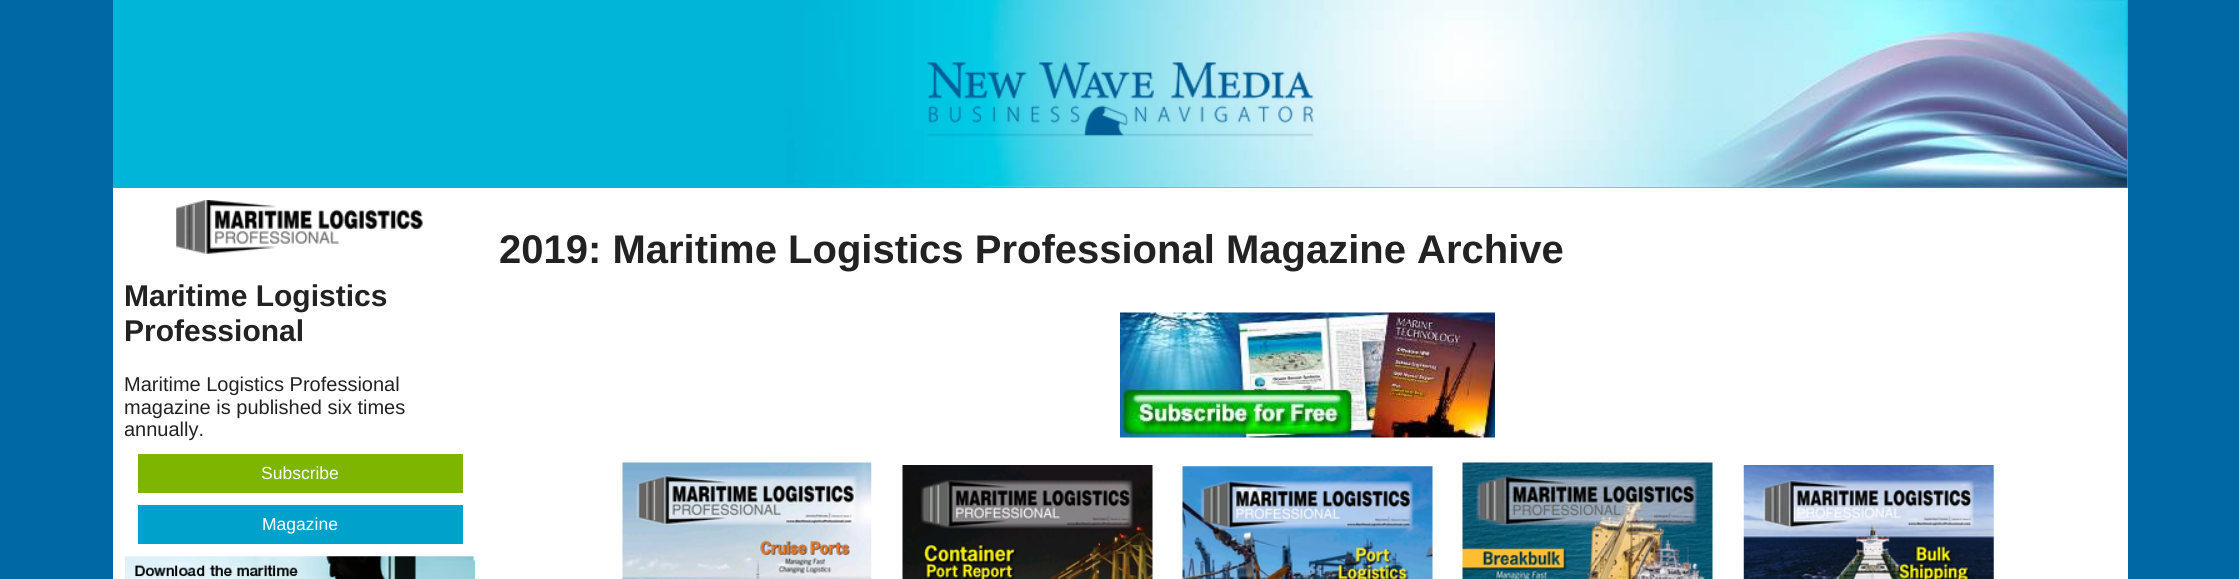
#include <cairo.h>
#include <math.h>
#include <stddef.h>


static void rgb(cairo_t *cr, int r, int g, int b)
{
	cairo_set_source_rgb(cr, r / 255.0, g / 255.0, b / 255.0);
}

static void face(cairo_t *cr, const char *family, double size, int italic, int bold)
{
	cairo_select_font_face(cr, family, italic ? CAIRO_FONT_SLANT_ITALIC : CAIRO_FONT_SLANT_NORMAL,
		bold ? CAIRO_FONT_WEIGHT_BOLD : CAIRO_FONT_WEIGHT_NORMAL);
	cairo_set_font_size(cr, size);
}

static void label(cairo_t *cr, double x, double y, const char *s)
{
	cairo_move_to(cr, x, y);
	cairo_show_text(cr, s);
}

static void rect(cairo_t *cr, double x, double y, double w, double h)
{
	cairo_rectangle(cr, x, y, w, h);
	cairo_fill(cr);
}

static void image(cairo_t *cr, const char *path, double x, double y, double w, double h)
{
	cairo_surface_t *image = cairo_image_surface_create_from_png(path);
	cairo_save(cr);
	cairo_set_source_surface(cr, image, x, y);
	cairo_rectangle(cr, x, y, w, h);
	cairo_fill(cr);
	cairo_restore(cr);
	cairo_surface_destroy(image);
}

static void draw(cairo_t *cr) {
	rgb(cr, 0, 105, 165);
	cairo_paint(cr);
	rgb(cr, 255, 255, 255);
	rect(cr, 113, 188, 2015, 391);
	rgb(cr, 1, 181, 216);
	rect(cr, 113, 0, 2015, 188);
	image(cr, "image0.png", 787, 0, 1341, 188);
	image(cr, "image1.png", 927, 62, 387, 75);
	face(cr, "Liberation Sans", 40, 0, 1);
	rgb(cr, 34, 34, 34);
	label(cr, 499, 263, "2019: Maritime Logistics Professional Magazine Archive");
	image(cr, "image2.png", 1120, 312, 375, 126);
	image(cr, "image3.png", 622, 462, 250, 117);
	image(cr, "image4.png", 902, 465, 251, 114);
	image(cr, "image5.png", 1182, 466, 251, 113);
	image(cr, "image6.png", 1462, 462, 251, 117);
	image(cr, "image7.png", 1743, 465, 251, 114);
	image(cr, "image8.png", 176, 200, 247, 54);
	face(cr, "Liberation Sans", 30, 0, 1);
	label(cr, 124, 306, "Maritime Logistics");
	label(cr, 124, 341, "Professional");
	face(cr, "Liberation Sans", 20, 0, 0);
	label(cr, 124, 391, "Maritime Logistics Professional");
	label(cr, 124, 414, "magazine is published six times");
	label(cr, 124, 436, "annually.");
	rgb(cr, 125, 181, 0);
	rect(cr, 138, 454, 325, 39);
	face(cr, "Liberation Sans", 17.5, 0, 0);
	rgb(cr, 255, 255, 255);
	label(cr, 261, 479, "Subscribe");
	rgb(cr, 0, 161, 203);
	rect(cr, 138, 505, 325, 39);
	rgb(cr, 255, 255, 255);
	label(cr, 262, 530, "Magazine");
	image(cr, "image9.png", 125, 556, 350, 23);
}

int main(void) {
	cairo_surface_t *surface = cairo_image_surface_create(CAIRO_FORMAT_RGB24, 2239, 579);
	cairo_t *cr = cairo_create(surface);
	cairo_font_options_t *options = cairo_font_options_create();
	cairo_font_options_set_hint_metrics(options, CAIRO_HINT_METRICS_OFF);
	cairo_font_options_set_hint_style(options, CAIRO_HINT_STYLE_NONE);
	cairo_set_font_options(cr, options);
	cairo_set_miter_limit(cr, 4);
	draw(cr);
	cairo_surface_write_to_png(surface, "render.png");
	cairo_font_options_destroy(options);
	cairo_destroy(cr);
	cairo_surface_destroy(surface);
	return 0;
}
